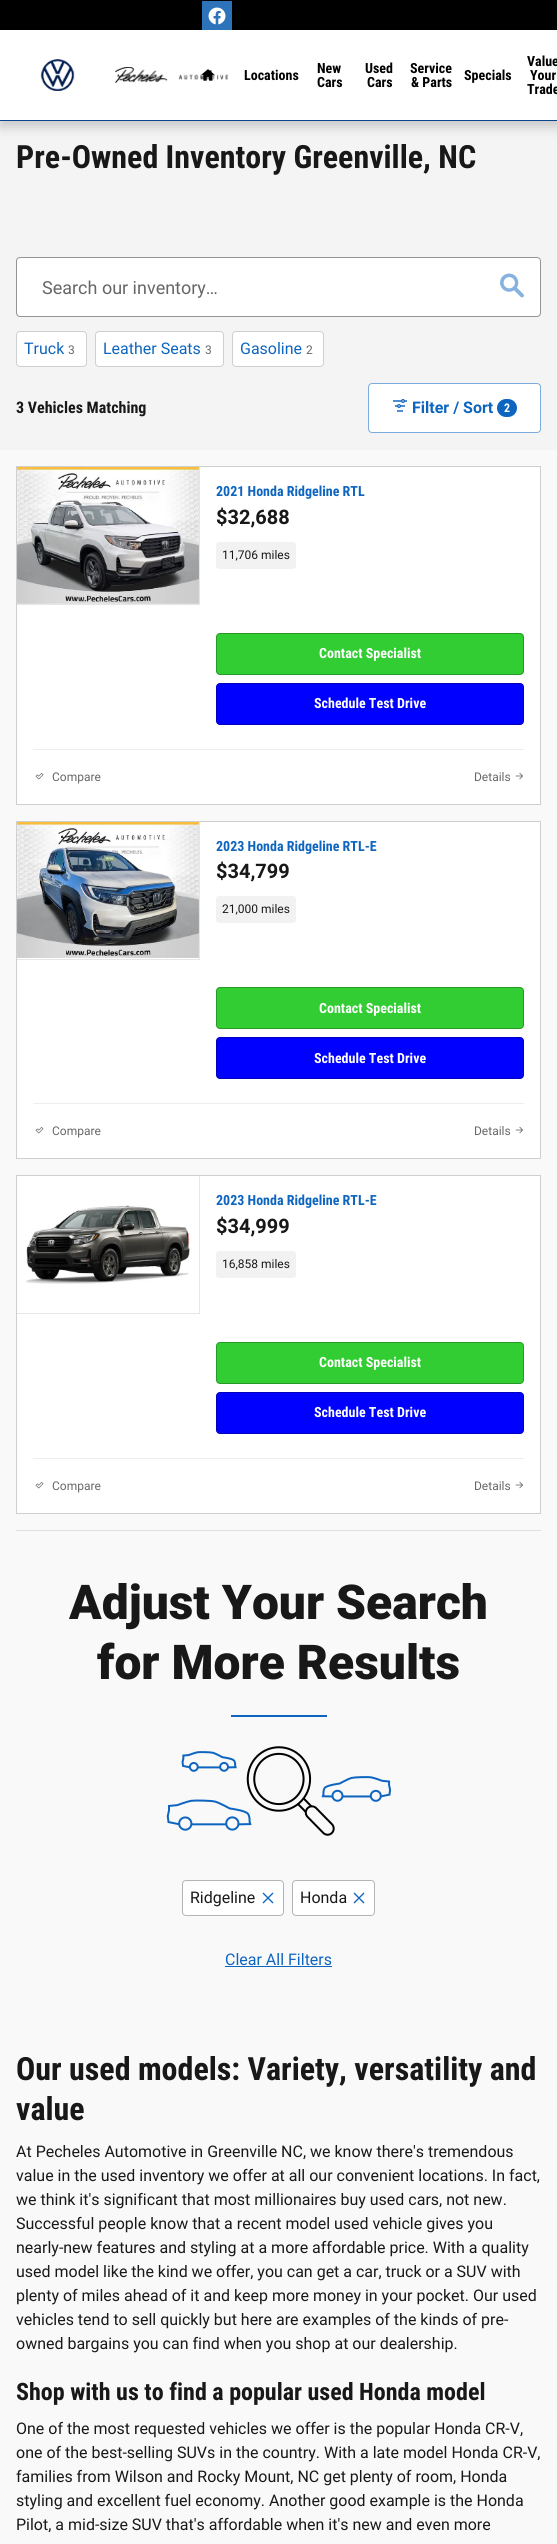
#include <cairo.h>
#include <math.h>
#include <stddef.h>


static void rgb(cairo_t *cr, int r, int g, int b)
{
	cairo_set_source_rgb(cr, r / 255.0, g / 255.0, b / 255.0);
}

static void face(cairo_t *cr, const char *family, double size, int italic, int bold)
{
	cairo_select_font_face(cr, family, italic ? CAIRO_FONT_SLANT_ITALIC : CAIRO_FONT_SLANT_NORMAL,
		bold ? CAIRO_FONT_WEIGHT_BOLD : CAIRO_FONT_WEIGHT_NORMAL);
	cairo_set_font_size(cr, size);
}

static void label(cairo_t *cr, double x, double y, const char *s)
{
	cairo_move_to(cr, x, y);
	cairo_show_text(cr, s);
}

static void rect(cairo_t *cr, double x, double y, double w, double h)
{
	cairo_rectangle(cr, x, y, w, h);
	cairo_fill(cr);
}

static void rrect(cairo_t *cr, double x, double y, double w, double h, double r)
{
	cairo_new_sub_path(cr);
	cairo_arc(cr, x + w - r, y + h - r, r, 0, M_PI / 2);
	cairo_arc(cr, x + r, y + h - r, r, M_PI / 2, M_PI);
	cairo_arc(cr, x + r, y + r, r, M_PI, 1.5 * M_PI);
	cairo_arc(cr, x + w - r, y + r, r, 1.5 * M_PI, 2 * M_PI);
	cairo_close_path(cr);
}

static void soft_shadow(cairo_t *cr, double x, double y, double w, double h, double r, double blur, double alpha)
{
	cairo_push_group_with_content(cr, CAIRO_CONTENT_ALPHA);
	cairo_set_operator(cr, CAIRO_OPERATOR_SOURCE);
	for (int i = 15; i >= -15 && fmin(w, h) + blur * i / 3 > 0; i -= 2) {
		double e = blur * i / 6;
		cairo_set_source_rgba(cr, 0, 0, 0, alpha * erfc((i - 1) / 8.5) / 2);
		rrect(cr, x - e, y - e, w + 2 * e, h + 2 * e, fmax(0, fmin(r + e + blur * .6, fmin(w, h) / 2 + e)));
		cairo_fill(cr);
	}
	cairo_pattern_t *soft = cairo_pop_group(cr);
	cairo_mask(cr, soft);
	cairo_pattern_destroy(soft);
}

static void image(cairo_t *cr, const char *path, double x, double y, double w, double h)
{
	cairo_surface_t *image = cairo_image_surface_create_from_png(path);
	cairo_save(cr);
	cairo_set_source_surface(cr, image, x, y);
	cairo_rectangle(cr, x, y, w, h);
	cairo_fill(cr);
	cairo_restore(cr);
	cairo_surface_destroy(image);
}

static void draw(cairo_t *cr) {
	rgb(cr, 249, 249, 250);
	cairo_paint(cr);
	rgb(cr, 244, 244, 244);
	rect(cr, 0, 121, 557, 329);
	rgb(cr, 0, 0, 0);
	soft_shadow(cr, 0, 6, 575, 121, 0, 6, 0.18);
	rgb(cr, 255, 255, 255);
	rect(cr, 0, 30, 557, 90);
	rgb(cr, 10, 70, 141);
	rect(cr, 0, 120, 557, 1);
	rgb(cr, 0, 0, 0);
	rect(cr, 0, 0, 557, 30);
	image(cr, "image0.png", 202, 1, 30, 29);
	image(cr, "image1.png", 40, 59, 35, 32);
	image(cr, "image2.png", 115, 67, 113, 16);
	image(cr, "image3.png", 201, 69, 14, 12);
	face(cr, "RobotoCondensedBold", 14, 0, 1);
	label(cr, 244, 80, "Locations");
	label(cr, 317, 73, "New");
	label(cr, 317, 87, "Cars");
	label(cr, 365, 73, "Used");
	label(cr, 367, 87, "Cars");
	label(cr, 410, 73, "Service");
	label(cr, 411, 87, "& Parts");
	label(cr, 464, 80, "Specials");
	label(cr, 527, 66, "Value");
	label(cr, 530, 80, "Your");
	label(cr, 527, 94, "Trade");
	face(cr, "RobotoCondensedBold", 32, 0, 1);
	rgb(cr, 24, 24, 24);
	label(cr, 16, 168, "Pre-Owned Inventory Greenville, NC");
	rgb(cr, 255, 255, 255);
	rrect(cr, 16.5, 257.5, 524, 59, 3.5);
	cairo_fill_preserve(cr);
	rgb(cr, 148, 149, 153);
	cairo_set_line_width(cr, 1);
	cairo_stroke(cr);
	face(cr, "Roboto", 18, 0, 0);
	rgb(cr, 102, 102, 102);
	label(cr, 42, 294, "Search our inventory…");
	image(cr, "image4.png", 500, 273, 24, 25);
	rgb(cr, 255, 255, 255);
	rrect(cr, 16.5, 331.5, 70, 35, 3.5);
	cairo_fill_preserve(cr);
	rgb(cr, 206, 207, 209);
	cairo_stroke(cr);
	face(cr, "Roboto", 16, 0, 0);
	rgb(cr, 13, 101, 191);
	label(cr, 24, 354, "Truck");
	face(cr, "Roboto", 12, 0, 0);
	rgb(cr, 102, 102, 102);
	label(cr, 68, 354, "3");
	rgb(cr, 255, 255, 255);
	rrect(cr, 95.5, 331.5, 128, 35, 3.5);
	cairo_fill_preserve(cr);
	rgb(cr, 206, 207, 209);
	cairo_stroke(cr);
	face(cr, "Roboto", 16, 0, 0);
	rgb(cr, 13, 101, 191);
	label(cr, 103, 354, "Leather Seats");
	face(cr, "Roboto", 12, 0, 0);
	rgb(cr, 102, 102, 102);
	label(cr, 205, 354, "3");
	rgb(cr, 255, 255, 255);
	rrect(cr, 232.5, 331.5, 91, 35, 3.5);
	cairo_fill_preserve(cr);
	rgb(cr, 206, 207, 209);
	cairo_stroke(cr);
	face(cr, "Roboto", 16, 0, 0);
	rgb(cr, 13, 101, 191);
	label(cr, 240, 354, "Gasoline");
	face(cr, "Roboto", 12, 0, 0);
	rgb(cr, 102, 102, 102);
	label(cr, 306, 354, "2");
	face(cr, "RobotoCondensedBold", 16, 0, 1);
	rgb(cr, 24, 24, 24);
	label(cr, 16, 413, "3 Vehicles Matching");
	rgb(cr, 255, 255, 255);
	rrect(cr, 368.5, 383.5, 172, 49, 3.5);
	cairo_fill_preserve(cr);
	rgb(cr, 124, 172, 220);
	cairo_stroke(cr);
	image(cr, "image5.png", 393, 399, 14, 13);
	face(cr, "Roboto", 16, 0, 1);
	rgb(cr, 13, 101, 191);
	label(cr, 412, 413, "Filter / Sort");
	rrect(cr, 497, 399, 20, 18, 9);
	cairo_fill(cr);
	face(cr, "RobotoCondensedBold", 12, 0, 1);
	rgb(cr, 255, 255, 255);
	label(cr, 504, 412, "2");
	cairo_rectangle(cr, 16.5, 466.5, 524, 338);
	cairo_fill_preserve(cr);
	rgb(cr, 206, 207, 209);
	cairo_stroke(cr);
	rgb(cr, 230, 230, 230);
	cairo_new_path(cr);
	cairo_move_to(cr, 200, 467);
	cairo_line_to(cr, 200, 605);
	cairo_line_to(cr, 199, 604);
	cairo_line_to(cr, 199, 467);
	cairo_close_path(cr);
	cairo_fill(cr);
	cairo_set_source_rgba(cr, 0, 0, 0, 0.1);
	cairo_new_path(cr);
	cairo_move_to(cr, 200, 605);
	cairo_line_to(cr, 17, 605);
	cairo_line_to(cr, 17, 604);
	cairo_line_to(cr, 199, 604);
	cairo_close_path(cr);
	cairo_fill(cr);
	image(cr, "image6.png", 17, 467, 182, 137);
	face(cr, "RobotoCondensedBold", 14, 0, 1);
	rgb(cr, 13, 101, 191);
	label(cr, 216, 496, "2021 Honda Ridgeline RTL");
	face(cr, "Roboto", 20, 0, 1);
	rgb(cr, 24, 24, 24);
	label(cr, 216, 524, "$32,688");
	rgb(cr, 242, 242, 242);
	rrect(cr, 216, 542, 80, 27, 3);
	cairo_fill(cr);
	face(cr, "Roboto", 12, 0, 0);
	rgb(cr, 24, 24, 24);
	label(cr, 222, 559, "11,706 miles");
	rgb(cr, 50, 205, 50);
	rrect(cr, 216.5, 633.5, 307, 41, 3.5);
	cairo_fill_preserve(cr);
	rgb(cr, 38, 154, 38);
	cairo_stroke(cr);
	face(cr, "RobotoCondensedBold", 14, 0, 1);
	rgb(cr, 255, 255, 255);
	label(cr, 319, 658, "Contact Specialist");
	rgb(cr, 0, 0, 255);
	rrect(cr, 216.5, 683.5, 307, 41, 3.5);
	cairo_fill_preserve(cr);
	rgb(cr, 0, 0, 191);
	cairo_stroke(cr);
	rgb(cr, 255, 255, 255);
	label(cr, 314, 708, "Schedule Test Drive");
	rgb(cr, 238, 238, 238);
	rect(cr, 33, 749, 491, 1);
	image(cr, "image7.png", 35, 773, 9, 7);
	face(cr, "Roboto", 12, 0, 0);
	rgb(cr, 102, 102, 102);
	label(cr, 52, 781, "Compare");
	label(cr, 474, 781, "Details");
	image(cr, "image8.png", 515, 772, 8, 8);
	rgb(cr, 255, 255, 255);
	cairo_rectangle(cr, 16.5, 821.5, 524, 337);
	cairo_fill_preserve(cr);
	rgb(cr, 206, 207, 209);
	cairo_stroke(cr);
	rgb(cr, 230, 230, 230);
	cairo_new_path(cr);
	cairo_move_to(cr, 200, 822);
	cairo_line_to(cr, 200, 960);
	cairo_line_to(cr, 199, 959);
	cairo_line_to(cr, 199, 822);
	cairo_close_path(cr);
	cairo_fill(cr);
	cairo_set_source_rgba(cr, 0, 0, 0, 0.1);
	cairo_new_path(cr);
	cairo_move_to(cr, 200, 960);
	cairo_line_to(cr, 17, 960);
	cairo_line_to(cr, 17, 959);
	cairo_line_to(cr, 199, 959);
	cairo_close_path(cr);
	cairo_fill(cr);
	image(cr, "image9.png", 17, 822, 182, 136);
	face(cr, "RobotoCondensedBold", 14, 0, 1);
	rgb(cr, 13, 101, 191);
	label(cr, 216, 851, "2023 Honda Ridgeline RTL-E");
	face(cr, "Roboto", 20, 0, 1);
	rgb(cr, 24, 24, 24);
	label(cr, 216, 878, "$34,799");
	rgb(cr, 242, 242, 242);
	rrect(cr, 216, 896, 80, 27, 3);
	cairo_fill(cr);
	face(cr, "Roboto", 12, 0, 0);
	rgb(cr, 24, 24, 24);
	label(cr, 222, 913, "21,000 miles");
	rgb(cr, 50, 205, 50);
	rrect(cr, 216.5, 987.5, 307, 41, 3.5);
	cairo_fill_preserve(cr);
	rgb(cr, 38, 154, 38);
	cairo_stroke(cr);
	face(cr, "RobotoCondensedBold", 14, 0, 1);
	rgb(cr, 255, 255, 255);
	label(cr, 319, 1013, "Contact Specialist");
	rgb(cr, 0, 0, 255);
	rrect(cr, 216.5, 1037.5, 307, 41, 3.5);
	cairo_fill_preserve(cr);
	rgb(cr, 0, 0, 191);
	cairo_stroke(cr);
	rgb(cr, 255, 255, 255);
	label(cr, 314, 1063, "Schedule Test Drive");
	rgb(cr, 238, 238, 238);
	rect(cr, 33, 1103, 491, 1);
	image(cr, "image7.png", 35, 1127, 9, 7);
	face(cr, "Roboto", 12, 0, 0);
	rgb(cr, 102, 102, 102);
	label(cr, 52, 1135, "Compare");
	label(cr, 474, 1135, "Details");
	image(cr, "image8.png", 515, 1126, 8, 8);
	rgb(cr, 255, 255, 255);
	cairo_rectangle(cr, 16.5, 1175.5, 524, 338);
	cairo_fill_preserve(cr);
	rgb(cr, 206, 207, 209);
	cairo_stroke(cr);
	rgb(cr, 230, 230, 230);
	cairo_new_path(cr);
	cairo_move_to(cr, 200, 1176);
	cairo_line_to(cr, 200, 1314);
	cairo_line_to(cr, 199, 1313);
	cairo_line_to(cr, 199, 1176);
	cairo_close_path(cr);
	cairo_fill(cr);
	cairo_set_source_rgba(cr, 0, 0, 0, 0.1);
	cairo_new_path(cr);
	cairo_move_to(cr, 200, 1314);
	cairo_line_to(cr, 17, 1314);
	cairo_line_to(cr, 17, 1313);
	cairo_line_to(cr, 199, 1313);
	cairo_close_path(cr);
	cairo_fill(cr);
	image(cr, "image10.png", 25, 1205, 166, 79);
	face(cr, "RobotoCondensedBold", 14, 0, 1);
	rgb(cr, 13, 101, 191);
	label(cr, 216, 1205, "2023 Honda Ridgeline RTL-E");
	face(cr, "Roboto", 20, 0, 1);
	rgb(cr, 24, 24, 24);
	label(cr, 216, 1233, "$34,999");
	rgb(cr, 242, 242, 242);
	rrect(cr, 216, 1251, 80, 27, 3);
	cairo_fill(cr);
	face(cr, "Roboto", 12, 0, 0);
	rgb(cr, 24, 24, 24);
	label(cr, 222, 1268, "16,858 miles");
	rgb(cr, 50, 205, 50);
	rrect(cr, 216.5, 1342.5, 307, 41, 3.5);
	cairo_fill_preserve(cr);
	rgb(cr, 38, 154, 38);
	cairo_stroke(cr);
	face(cr, "RobotoCondensedBold", 14, 0, 1);
	rgb(cr, 255, 255, 255);
	label(cr, 319, 1367, "Contact Specialist");
	rgb(cr, 0, 0, 255);
	rrect(cr, 216.5, 1392.5, 307, 41, 3.5);
	cairo_fill_preserve(cr);
	rgb(cr, 0, 0, 191);
	cairo_stroke(cr);
	rgb(cr, 255, 255, 255);
	label(cr, 314, 1417, "Schedule Test Drive");
	rgb(cr, 238, 238, 238);
	rect(cr, 33, 1458, 491, 1);
	image(cr, "image7.png", 35, 1482, 9, 7);
	face(cr, "Roboto", 12, 0, 0);
	rgb(cr, 102, 102, 102);
	label(cr, 52, 1490, "Compare");
	label(cr, 474, 1490, "Details");
	image(cr, "image8.png", 515, 1481, 8, 8);
	rgb(cr, 224, 224, 225);
	rect(cr, 16, 1530, 525, 1);
	face(cr, "Roboto Black", 48, 0, 0);
	rgb(cr, 24, 24, 24);
	label(cr, 69, 1619, "Adjust Your Search");
	label(cr, 97, 1679, "for More Results");
	rgb(cr, 13, 101, 191);
	rect(cr, 231, 1715, 96, 2);
	image(cr, "image11.png", 166, 1746, 226, 90);
	rgb(cr, 255, 255, 255);
	rrect(cr, 182.5, 1880.5, 101, 35, 3.5);
	cairo_fill_preserve(cr);
	rgb(cr, 179, 180, 183);
	cairo_stroke(cr);
	face(cr, "Roboto", 16, 0, 0);
	rgb(cr, 24, 24, 24);
	label(cr, 190, 1903, "Ridgeline");
	image(cr, "image12.png", 262, 1892, 12, 12);
	rgb(cr, 255, 255, 255);
	rrect(cr, 292.5, 1880.5, 82, 35, 3.5);
	cairo_fill_preserve(cr);
	rgb(cr, 179, 180, 183);
	cairo_stroke(cr);
	rgb(cr, 24, 24, 24);
	label(cr, 300, 1903, "Honda");
	image(cr, "image12.png", 353, 1892, 12, 12);
	rgb(cr, 13, 101, 191);
	label(cr, 225, 1965, "Clear All Filters");
	rect(cr, 225, 1966, 107, 1);
	face(cr, "RobotoCondensedBold", 32, 0, 1);
	rgb(cr, 24, 24, 24);
	label(cr, 16, 2080, "Our used models: Variety, versatility and");
	label(cr, 16, 2120, "value");
	face(cr, "Roboto", 16, 0, 0);
	label(cr, 16, 2157, "At Pecheles Automotive in Greenville NC, we know there's tremendous");
	label(cr, 16, 2181, "value in the used inventory we offer at all our convenient locations. In fact,");
	label(cr, 16, 2205, "we think it's significant that most millionaires buy used cars, not new.");
	label(cr, 16, 2229, "Successful people know that a recent model used vehicle gives you");
	label(cr, 16, 2253, "nearly-new features and styling at a more affordable price. With a quality");
	label(cr, 16, 2277, "used model like the kind we offer, you can get a car, truck or a SUV with");
	label(cr, 16, 2301, "plenty of miles ahead of it and keep more money in your pocket. Our used");
	label(cr, 16, 2325, "vehicles tend to sell quickly but here are examples of the kinds of pre-");
	label(cr, 16, 2349, "owned bargains you can find when you shop at our dealership.");
	face(cr, "RobotoCondensedBold", 24, 0, 1);
	label(cr, 16, 2400, "Shop with us to find a popular used Honda model");
	face(cr, "Roboto", 16, 0, 0);
	label(cr, 16, 2434, "One of the most requested vehicles we offer is the popular Honda CR-V,");
	label(cr, 16, 2458, "one of the best-selling SUVs in the country. With a late model Honda CR-V,");
	label(cr, 16, 2482, "families from Wilson and Rocky Mount, NC get plenty of room, Honda");
	label(cr, 16, 2506, "styling and excellent fuel economy. Another good example is the Honda");
	label(cr, 16, 2530, "Pilot, a mid-size SUV that's affordable when it's new and even more");
}

int main(void) {
	cairo_surface_t *surface = cairo_image_surface_create(CAIRO_FORMAT_RGB24, 557, 2544);
	cairo_t *cr = cairo_create(surface);
	cairo_font_options_t *options = cairo_font_options_create();
	cairo_font_options_set_hint_metrics(options, CAIRO_HINT_METRICS_OFF);
	cairo_font_options_set_hint_style(options, CAIRO_HINT_STYLE_NONE);
	cairo_set_font_options(cr, options);
	cairo_set_miter_limit(cr, 4);
	draw(cr);
	cairo_surface_write_to_png(surface, "render.png");
	cairo_font_options_destroy(options);
	cairo_destroy(cr);
	cairo_surface_destroy(surface);
	return 0;
}
